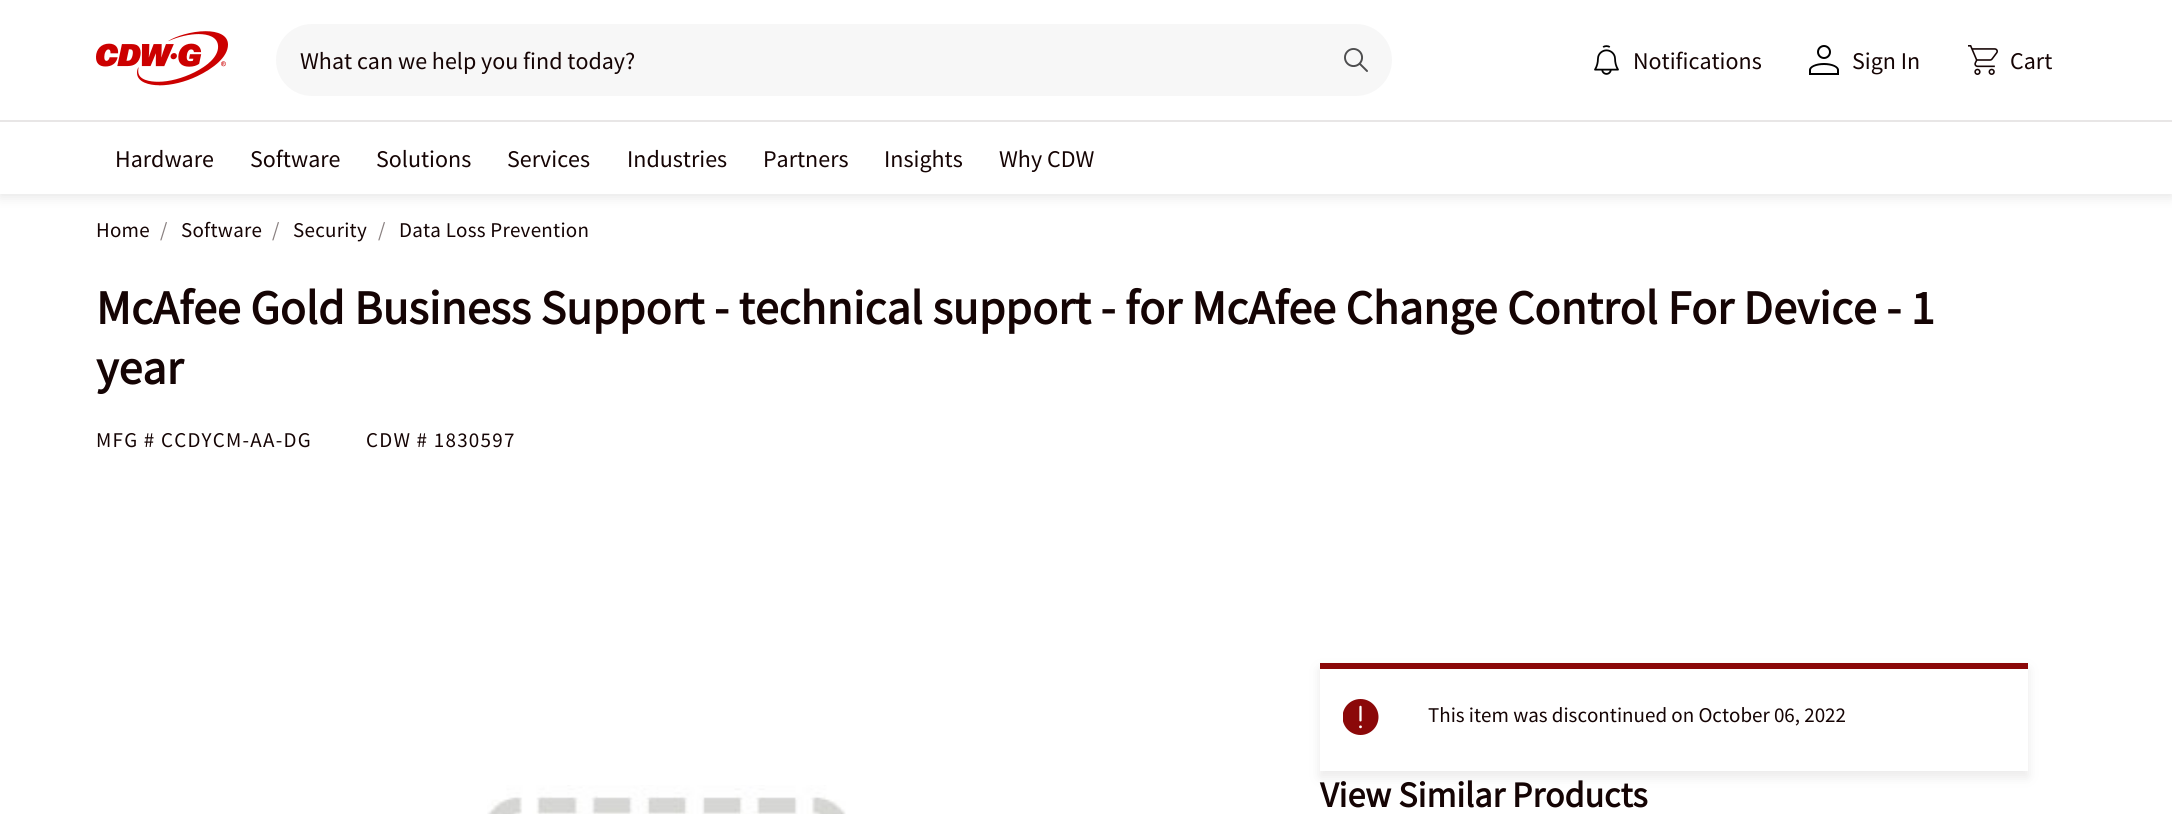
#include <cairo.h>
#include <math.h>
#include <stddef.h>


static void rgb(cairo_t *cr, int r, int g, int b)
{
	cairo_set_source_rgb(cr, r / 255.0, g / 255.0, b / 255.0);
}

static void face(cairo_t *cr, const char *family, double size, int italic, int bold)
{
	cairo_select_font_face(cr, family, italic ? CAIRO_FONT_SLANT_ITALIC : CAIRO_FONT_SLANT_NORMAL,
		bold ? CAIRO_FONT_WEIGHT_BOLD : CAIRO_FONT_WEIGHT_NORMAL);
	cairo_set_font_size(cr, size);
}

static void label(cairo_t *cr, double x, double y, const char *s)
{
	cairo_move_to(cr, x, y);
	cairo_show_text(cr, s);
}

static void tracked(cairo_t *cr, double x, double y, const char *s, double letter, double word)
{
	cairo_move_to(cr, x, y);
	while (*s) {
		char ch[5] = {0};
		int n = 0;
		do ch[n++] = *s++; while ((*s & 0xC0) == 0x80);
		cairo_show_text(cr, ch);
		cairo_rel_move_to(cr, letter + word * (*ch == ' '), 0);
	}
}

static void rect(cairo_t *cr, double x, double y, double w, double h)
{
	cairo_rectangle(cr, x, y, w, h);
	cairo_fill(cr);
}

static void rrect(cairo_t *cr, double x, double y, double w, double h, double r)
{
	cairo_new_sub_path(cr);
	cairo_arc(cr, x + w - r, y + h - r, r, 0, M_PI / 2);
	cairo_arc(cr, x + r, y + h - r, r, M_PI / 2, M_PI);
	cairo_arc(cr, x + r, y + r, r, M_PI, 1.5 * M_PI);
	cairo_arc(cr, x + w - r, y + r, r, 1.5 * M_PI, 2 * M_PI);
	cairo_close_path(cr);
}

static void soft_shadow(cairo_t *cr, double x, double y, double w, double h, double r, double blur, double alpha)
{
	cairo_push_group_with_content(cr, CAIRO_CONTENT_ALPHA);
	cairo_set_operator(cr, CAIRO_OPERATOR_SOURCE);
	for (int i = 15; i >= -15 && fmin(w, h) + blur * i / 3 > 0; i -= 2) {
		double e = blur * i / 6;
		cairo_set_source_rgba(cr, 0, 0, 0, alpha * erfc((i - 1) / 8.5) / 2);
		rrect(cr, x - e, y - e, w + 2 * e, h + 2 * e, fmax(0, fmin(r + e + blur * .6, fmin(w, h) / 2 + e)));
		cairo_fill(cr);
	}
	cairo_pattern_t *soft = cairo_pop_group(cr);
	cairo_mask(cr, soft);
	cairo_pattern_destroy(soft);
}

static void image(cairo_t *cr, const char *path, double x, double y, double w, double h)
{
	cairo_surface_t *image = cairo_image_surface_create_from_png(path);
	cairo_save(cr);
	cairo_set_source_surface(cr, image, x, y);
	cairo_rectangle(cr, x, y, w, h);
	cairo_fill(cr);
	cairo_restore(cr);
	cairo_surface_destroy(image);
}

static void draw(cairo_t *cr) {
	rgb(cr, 255, 255, 255);
	cairo_paint(cr);
	rgb(cr, 0, 0, 0);
	soft_shadow(cr, 0, 3, 2172, 194, 0, 6, 0.1);
	rgb(cr, 255, 255, 255);
	rect(cr, 0, 0, 2172, 194);
	image(cr, "image0.png", 96, 31, 132, 55);
	rgb(cr, 247, 247, 247);
	rrect(cr, 276, 24, 1116, 72, 36);
	cairo_fill(cr);
	face(cr, "Source Sans Pro", 24, 0, 0);
	rgb(cr, 21, 4, 4);
	label(cr, 300, 69, "What can we help you find today?");
	image(cr, "image1.png", 1344, 48, 24, 24);
	image(cr, "image2.png", 1594, 45, 25, 30);
	label(cr, 1633, 69, "Notifications");
	image(cr, "image3.png", 1809, 45, 30, 30);
	label(cr, 1852, 69, "Sign In");
	image(cr, "image4.png", 1968, 45, 30, 30);
	label(cr, 2010, 69, "Cart");
	rgb(cr, 232, 230, 230);
	rect(cr, 0, 120, 2172, 2);
	rgb(cr, 21, 4, 4);
	label(cr, 115, 167, "Hardware");
	label(cr, 250, 167, "Software");
	label(cr, 376, 167, "Solutions");
	label(cr, 507, 167, "Services");
	label(cr, 627, 167, "Industries");
	label(cr, 763, 167, "Partners");
	label(cr, 884, 167, "Insights");
	label(cr, 999, 167, "Why CDW");
	face(cr, "Source Sans Pro", 21, 0, 0);
	tracked(cr, 96, 237, "Home", 0.25, 0);
	rgb(cr, 138, 129, 129);
	tracked(cr, 160, 237, "/", 0.25, 0);
	rgb(cr, 21, 4, 4);
	tracked(cr, 181, 237, "Software", 0.25, 0);
	rgb(cr, 138, 129, 129);
	tracked(cr, 272, 237, "/", 0.25, 0);
	rgb(cr, 21, 4, 4);
	tracked(cr, 293, 237, "Security", 0.25, 0);
	rgb(cr, 138, 129, 129);
	tracked(cr, 378, 237, "/", 0.25, 0);
	rgb(cr, 21, 4, 4);
	tracked(cr, 399, 237, "Data Loss Prevention", 0.25, 0);
	face(cr, "Source Sans Pro", 48, 0, 1);
	label(cr, 96, 324, "McAfee Gold Business Support - technical support - for McAfee Change Control For Device - 1");
	label(cr, 96, 384, "year");
	face(cr, "Source Sans Pro", 21, 0, 0);
	tracked(cr, 96, 447, "MFG # CCDYCM-AA-DG", 1.25, 0);
	tracked(cr, 366, 447, "CDW # 1830597", 1.25, 0);
	image(cr, "image5.png", 487, 785, 359, 29);
	cairo_save(cr);
	cairo_set_fill_rule(cr, CAIRO_FILL_RULE_EVEN_ODD);
	cairo_new_path(cr);
	cairo_move_to(cr, 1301, 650);
	cairo_line_to(cr, 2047, 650);
	cairo_line_to(cr, 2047, 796);
	cairo_line_to(cr, 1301, 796);
	cairo_close_path(cr);
	cairo_move_to(cr, 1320, 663);
	cairo_line_to(cr, 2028, 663);
	cairo_line_to(cr, 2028, 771);
	cairo_line_to(cr, 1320, 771);
	cairo_close_path(cr);
	cairo_clip(cr);
	rgb(cr, 80, 67, 67);
	soft_shadow(cr, 1320, 669, 708, 108, 0, 6, 0.12);
	cairo_restore(cr);
	rgb(cr, 139, 8, 9);
	rect(cr, 1320, 663, 708, 6);
	image(cr, "image6.png", 1343, 699, 36, 36);
	rgb(cr, 21, 4, 4);
	label(cr, 1428, 722, "This item was discontinued on October 06, 2022");
	face(cr, "Source Sans Pro", 36, 0, 1);
	label(cr, 1320, 807, "View Similar Products");
}

int main(void) {
	cairo_surface_t *surface = cairo_image_surface_create(CAIRO_FORMAT_RGB24, 2172, 814);
	cairo_t *cr = cairo_create(surface);
	cairo_font_options_t *options = cairo_font_options_create();
	cairo_font_options_set_hint_metrics(options, CAIRO_HINT_METRICS_OFF);
	cairo_font_options_set_hint_style(options, CAIRO_HINT_STYLE_NONE);
	cairo_set_font_options(cr, options);
	cairo_set_miter_limit(cr, 4);
	draw(cr);
	cairo_surface_write_to_png(surface, "render.png");
	cairo_font_options_destroy(options);
	cairo_destroy(cr);
	cairo_surface_destroy(surface);
	return 0;
}
